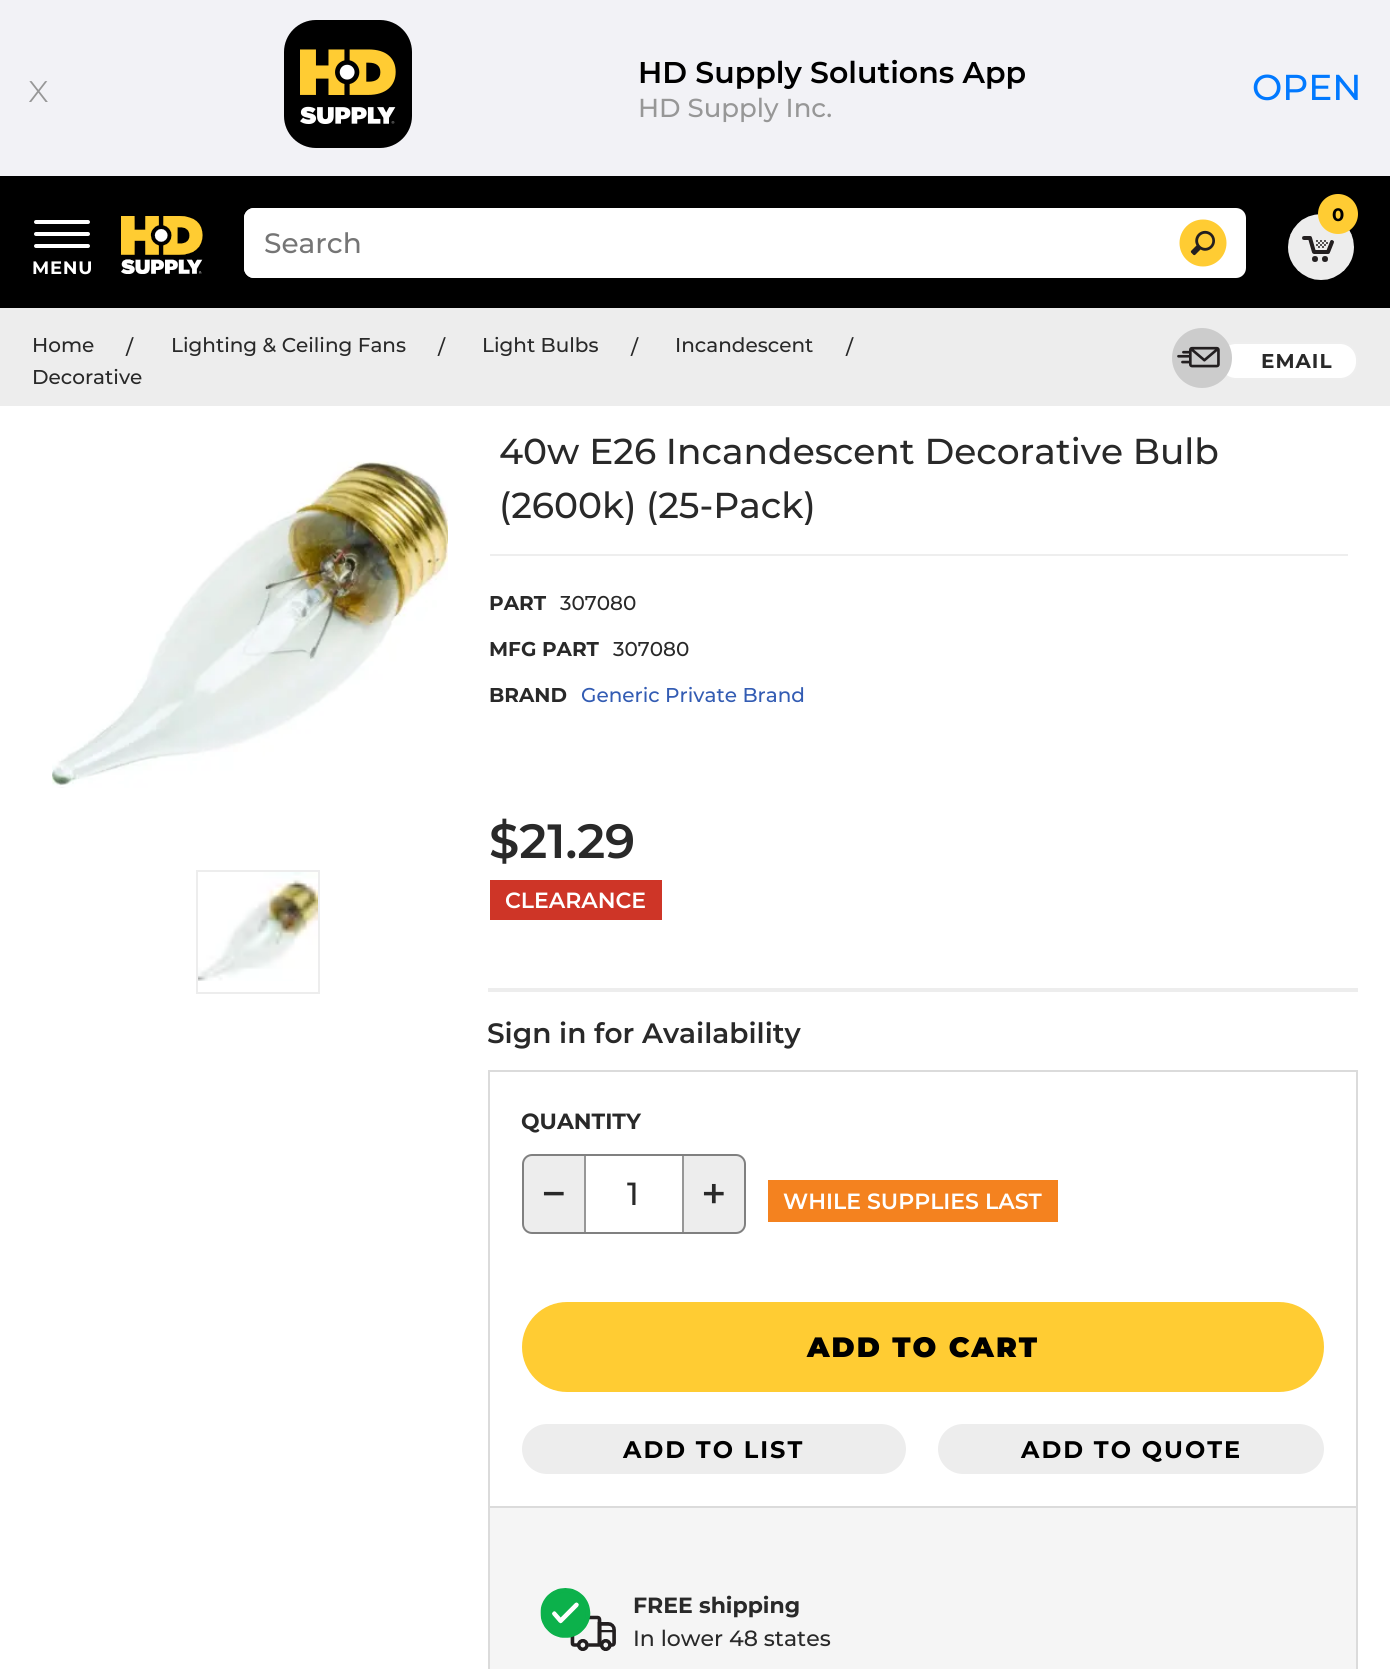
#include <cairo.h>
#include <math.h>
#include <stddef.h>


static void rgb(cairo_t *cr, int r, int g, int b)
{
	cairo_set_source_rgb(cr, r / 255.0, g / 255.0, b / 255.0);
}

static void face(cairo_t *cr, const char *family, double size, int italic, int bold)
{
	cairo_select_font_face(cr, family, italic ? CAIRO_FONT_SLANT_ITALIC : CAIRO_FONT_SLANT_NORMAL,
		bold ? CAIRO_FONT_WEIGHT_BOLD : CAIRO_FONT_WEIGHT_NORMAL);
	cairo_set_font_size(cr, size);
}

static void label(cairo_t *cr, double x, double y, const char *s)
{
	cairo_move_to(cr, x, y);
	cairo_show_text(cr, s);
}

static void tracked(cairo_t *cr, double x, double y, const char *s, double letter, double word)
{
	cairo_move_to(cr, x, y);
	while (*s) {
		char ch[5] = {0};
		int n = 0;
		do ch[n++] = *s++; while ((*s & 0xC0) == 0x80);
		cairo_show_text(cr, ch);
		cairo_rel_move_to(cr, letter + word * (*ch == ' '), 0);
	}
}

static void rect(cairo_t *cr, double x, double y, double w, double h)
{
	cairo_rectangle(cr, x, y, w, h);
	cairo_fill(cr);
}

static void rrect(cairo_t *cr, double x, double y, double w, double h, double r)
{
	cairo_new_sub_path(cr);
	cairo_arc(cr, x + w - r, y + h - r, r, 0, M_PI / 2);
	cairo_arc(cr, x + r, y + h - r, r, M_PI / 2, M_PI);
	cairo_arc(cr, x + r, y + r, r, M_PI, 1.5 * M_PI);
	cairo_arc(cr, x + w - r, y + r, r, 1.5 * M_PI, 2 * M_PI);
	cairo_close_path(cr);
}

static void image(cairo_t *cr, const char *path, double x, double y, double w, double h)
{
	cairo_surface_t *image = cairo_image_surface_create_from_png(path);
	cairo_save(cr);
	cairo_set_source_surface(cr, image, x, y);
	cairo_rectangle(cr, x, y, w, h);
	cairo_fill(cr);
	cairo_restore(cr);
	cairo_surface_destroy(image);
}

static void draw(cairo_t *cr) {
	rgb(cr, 255, 255, 255);
	cairo_paint(cr);
	rgb(cr, 242, 242, 246);
	rect(cr, 0, 0, 1390, 176);
	face(cr, "Montserrat Light", 40, 0, 0);
	rgb(cr, 151, 151, 151);
	label(cr, 28, 102, "x");
	image(cr, "image0.png", 284, 20, 128, 128);
	face(cr, "Montserrat SemiBold", 30, 0, 0);
	rgb(cr, 0, 0, 0);
	label(cr, 638, 83, "HD Supply Solutions App");
	face(cr, "Montserrat Medium", 26, 0, 0);
	rgb(cr, 151, 151, 151);
	label(cr, 638, 117, "HD Supply Inc.");
	face(cr, "Montserrat Medium", 36, 0, 0);
	rgb(cr, 1, 121, 255);
	label(cr, 1252, 100, "OPEN");
	rgb(cr, 0, 0, 0);
	rect(cr, 0, 176, 1390, 132);
	image(cr, "image1.png", 33, 220, 58, 55);
	image(cr, "image2.png", 121, 216, 82, 58);
	rgb(cr, 255, 255, 255);
	rrect(cr, 244, 208, 1002, 70, 10);
	cairo_fill(cr);
	rrect(cr, 244, 208, 916, 70, 10);
	cairo_fill(cr);
	face(cr, "Montserrat Medium", 28, 0, 0);
	rgb(cr, 117, 117, 117);
	label(cr, 264, 253, "Search");
	image(cr, "image3.png", 1179, 219, 48, 48);
	image(cr, "image4.png", 1288, 214, 66, 66);
	rgb(cr, 255, 204, 51);
	cairo_arc(cr, 1338, 214, 20, 0, 2 * M_PI);
	cairo_fill(cr);
	face(cr, "Montserrat", 18, 0, 1);
	rgb(cr, 0, 0, 0);
	label(cr, 1332, 221, "0");
	rgb(cr, 237, 237, 237);
	rect(cr, 0, 308, 1390, 98);
	face(cr, "Montserrat Medium", 20, 0, 0);
	rgb(cr, 41, 41, 41);
	label(cr, 32, 352, "Home");
	label(cr, 126, 354, "/");
	label(cr, 171, 352, "Lighting & Ceiling Fans");
	label(cr, 438, 354, "/");
	label(cr, 482, 352, "Light Bulbs");
	label(cr, 631, 354, "/");
	label(cr, 675, 352, "Incandescent");
	label(cr, 846, 354, "/");
	label(cr, 32, 384, "Decorative");
	rgb(cr, 255, 255, 255);
	rrect(cr, 1219, 343, 138, 36, 17);
	cairo_fill_preserve(cr);
	rgb(cr, 238, 238, 238);
	cairo_stroke(cr);
	image(cr, "image5.png", 1172, 328, 60, 60);
	face(cr, "Montserrat", 20, 0, 1);
	rgb(cr, 41, 41, 41);
	tracked(cr, 1261, 368, "EMAIL", 1, 0);
	image(cr, "image6.png", 52, 461, 396, 327);
	cairo_rectangle(cr, 197, 871, 122, 122);
	rgb(cr, 237, 237, 237);
	cairo_stroke(cr);
	image(cr, "image7.png", 198, 872, 120, 109);
	face(cr, "Montserrat Medium", 36, 0, 0);
	rgb(cr, 41, 41, 41);
	label(cr, 499, 464, "40w E26 Incandescent Decorative Bulb");
	label(cr, 499, 518, "(2600k) (25-Pack)");
	rgb(cr, 238, 238, 238);
	rect(cr, 490, 554, 858, 2);
	face(cr, "Montserrat", 20, 0, 1);
	rgb(cr, 41, 41, 41);
	label(cr, 489, 610, "PART");
	face(cr, "Montserrat Medium", 20, 0, 0);
	label(cr, 560, 610, "307080");
	face(cr, "Montserrat", 20, 0, 1);
	label(cr, 489, 656, "MFG PART");
	face(cr, "Montserrat Medium", 20, 0, 0);
	label(cr, 613, 656, "307080");
	face(cr, "Montserrat", 20, 0, 1);
	label(cr, 489, 702, "BRAND");
	face(cr, "Montserrat Medium", 20, 0, 0);
	rgb(cr, 51, 92, 179);
	label(cr, 581, 702, "Generic Private Brand");
	face(cr, "Montserrat SemiBold", 48, 0, 0);
	rgb(cr, 41, 41, 41);
	label(cr, 489, 858, "$21.29");
	rgb(cr, 206, 53, 39);
	rect(cr, 490, 880, 172, 40);
	face(cr, "Montserrat SemiBold", 22, 0, 0);
	rgb(cr, 255, 255, 255);
	label(cr, 505, 908, "CLEARANCE");
	rgb(cr, 237, 237, 237);
	rect(cr, 488, 988, 870, 4);
	face(cr, "Montserrat SemiBold", 28, 0, 0);
	rgb(cr, 41, 41, 41);
	label(cr, 487, 1043, "Sign in for Availability");
	cairo_rectangle(cr, 489, 1071, 868, 436);
	rgb(cr, 219, 219, 219);
	cairo_stroke(cr);
	face(cr, "Montserrat", 22, 0, 1);
	rgb(cr, 41, 41, 41);
	label(cr, 521, 1129, "QUANTITY");
	rgb(cr, 237, 237, 237);
	rrect(cr, 523, 1155, 222, 78, 9);
	cairo_fill_preserve(cr);
	rgb(cr, 128, 128, 128);
	cairo_stroke(cr);
	face(cr, "Montserrat Medium", 44, 0, 0);
	rgb(cr, 41, 41, 41);
	label(cr, 541, 1209, "−");
	rgb(cr, 255, 255, 255);
	rect(cr, 586, 1156, 96, 76);
	rgb(cr, 151, 151, 151);
	rect(cr, 682, 1156, 2, 76);
	rect(cr, 584, 1156, 2, 76);
	face(cr, "Montserrat Medium", 32, 0, 0);
	rgb(cr, 41, 41, 41);
	label(cr, 627, 1205, "1");
	face(cr, "Montserrat Medium", 44, 0, 0);
	label(cr, 701, 1209, "+");
	rgb(cr, 244, 130, 31);
	rect(cr, 768, 1180, 290, 42);
	face(cr, "Montserrat SemiBold", 22, 0, 0);
	rgb(cr, 255, 255, 255);
	label(cr, 783, 1209, "WHILE SUPPLIES LAST");
	rgb(cr, 255, 204, 51);
	rrect(cr, 525, 1305, 796, 84, 42);
	cairo_fill_preserve(cr);
	cairo_set_line_width(cr, 6);
	cairo_stroke(cr);
	face(cr, "Montserrat Black", 28, 0, 0);
	rgb(cr, 0, 0, 0);
	tracked(cr, 807, 1357, "ADD TO CART", 2, 0);
	rgb(cr, 237, 237, 237);
	rrect(cr, 524, 1426, 380, 46, 23);
	cairo_fill_preserve(cr);
	cairo_set_line_width(cr, 4);
	cairo_stroke(cr);
	face(cr, "Montserrat", 24, 0, 1);
	rgb(cr, 0, 0, 0);
	tracked(cr, 623, 1458, "ADD TO LIST", 2, 0);
	rgb(cr, 237, 237, 237);
	rrect(cr, 940, 1426, 382, 46, 23);
	cairo_fill_preserve(cr);
	cairo_stroke(cr);
	rgb(cr, 0, 0, 0);
	tracked(cr, 1021, 1458, "ADD TO QUOTE", 2, 0);
	rgb(cr, 245, 245, 245);
	rect(cr, 490, 1508, 866, 161);
	rgb(cr, 219, 219, 219);
	rect(cr, 1356, 1508, 2, 161);
	rect(cr, 488, 1508, 2, 161);
	image(cr, "image8.png", 540, 1588, 76, 63);
	face(cr, "Montserrat", 22, 0, 1);
	rgb(cr, 41, 41, 41);
	label(cr, 633, 1613, "FREE shipping");
	face(cr, "Montserrat Medium", 22, 0, 0);
	label(cr, 633, 1646, "In lower 48 states");
}

int main(void) {
	cairo_surface_t *surface = cairo_image_surface_create(CAIRO_FORMAT_RGB24, 1390, 1669);
	cairo_t *cr = cairo_create(surface);
	cairo_font_options_t *options = cairo_font_options_create();
	cairo_font_options_set_hint_metrics(options, CAIRO_HINT_METRICS_OFF);
	cairo_font_options_set_hint_style(options, CAIRO_HINT_STYLE_NONE);
	cairo_set_font_options(cr, options);
	cairo_set_miter_limit(cr, 4);
	draw(cr);
	cairo_surface_write_to_png(surface, "render.png");
	cairo_font_options_destroy(options);
	cairo_destroy(cr);
	cairo_surface_destroy(surface);
	return 0;
}
